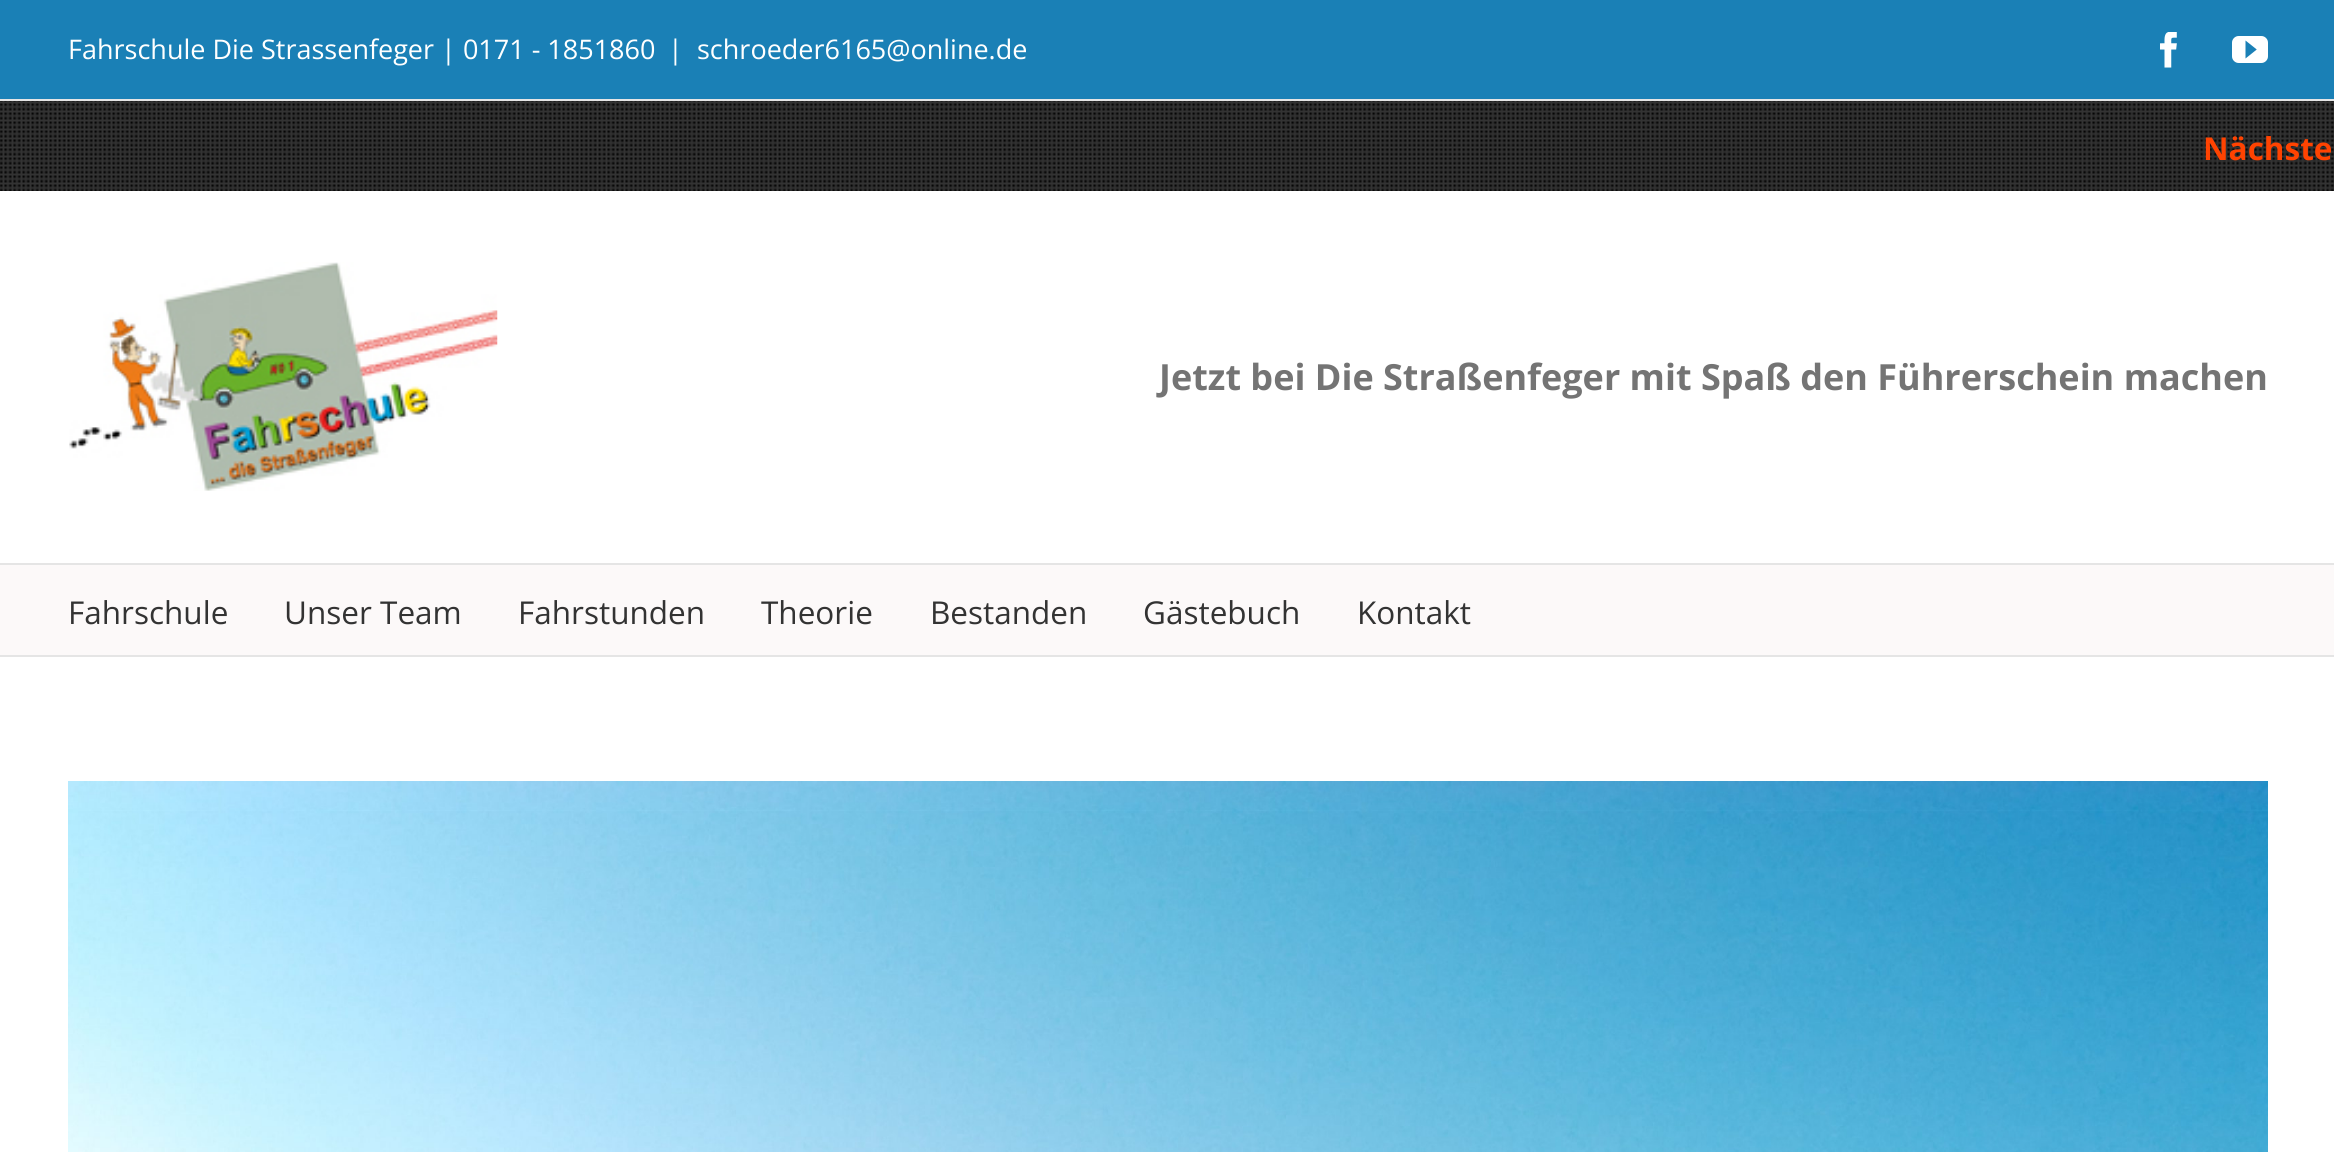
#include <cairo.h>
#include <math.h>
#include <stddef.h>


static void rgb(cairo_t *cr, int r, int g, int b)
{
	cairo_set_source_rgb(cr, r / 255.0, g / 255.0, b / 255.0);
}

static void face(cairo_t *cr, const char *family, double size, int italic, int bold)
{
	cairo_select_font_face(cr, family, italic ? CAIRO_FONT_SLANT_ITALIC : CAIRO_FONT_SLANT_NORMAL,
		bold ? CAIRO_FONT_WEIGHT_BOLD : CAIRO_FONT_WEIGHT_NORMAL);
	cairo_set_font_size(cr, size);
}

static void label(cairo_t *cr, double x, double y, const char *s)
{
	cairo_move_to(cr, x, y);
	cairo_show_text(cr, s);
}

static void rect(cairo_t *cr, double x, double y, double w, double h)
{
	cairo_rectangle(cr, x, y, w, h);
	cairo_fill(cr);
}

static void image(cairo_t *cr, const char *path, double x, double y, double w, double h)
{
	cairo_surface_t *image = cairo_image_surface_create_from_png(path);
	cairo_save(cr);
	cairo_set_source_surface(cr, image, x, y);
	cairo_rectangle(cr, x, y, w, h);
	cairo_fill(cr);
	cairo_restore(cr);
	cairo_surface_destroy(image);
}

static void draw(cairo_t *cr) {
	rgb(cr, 255, 255, 255);
	cairo_paint(cr);
	image(cr, "image0.png", 0, 101, 2334, 90);
	rgb(cr, 26, 128, 182);
	rect(cr, 0, 0, 2334, 99);
	rgb(cr, 229, 229, 229);
	rect(cr, 0, 99, 2334, 2);
	face(cr, "Open Sans", 27, 0, 0);
	rgb(cr, 255, 255, 255);
	label(cr, 68, 59, "Fahrschule Die Strassenfeger | 0171 - 1851860");
	label(cr, 668, 59, "|");
	label(cr, 697, 59, "schroeder6165@online.de");
	image(cr, "image1.png", 2160, 32, 17, 36);
	image(cr, "image2.png", 2232, 36, 36, 27);
	face(cr, "Open Sans", 31.5, 0, 1);
	rgb(cr, 255, 67, 1);
	label(cr, 2203, 160, "Nächste");
	rgb(cr, 229, 229, 229);
	rect(cr, 0, 563, 2334, 2);
	image(cr, "image3.png", 69, 262, 429, 229);
	face(cr, "Open Sans", 36, 0, 1);
	rgb(cr, 116, 116, 116);
	label(cr, 1159, 390, "Jetzt bei Die Straßenfeger mit Spaß den Führerschein machen");
	rgb(cr, 252, 249, 249);
	rect(cr, 0, 565, 2334, 90);
	rgb(cr, 229, 229, 229);
	rect(cr, 0, 655, 2334, 2);
	face(cr, "Open Sans", 31.5, 0, 0);
	rgb(cr, 51, 51, 51);
	label(cr, 68, 624, "Fahrschule");
	label(cr, 284, 624, "Unser Team");
	label(cr, 518, 624, "Fahrstunden");
	label(cr, 761, 624, "Theorie");
	label(cr, 930, 624, "Bestanden");
	label(cr, 1143, 624, "Gästebuch");
	label(cr, 1357, 624, "Kontakt");
	image(cr, "image4.png", 68, 781, 2200, 371);
}

int main(void) {
	cairo_surface_t *surface = cairo_image_surface_create(CAIRO_FORMAT_RGB24, 2334, 1152);
	cairo_t *cr = cairo_create(surface);
	cairo_font_options_t *options = cairo_font_options_create();
	cairo_font_options_set_hint_metrics(options, CAIRO_HINT_METRICS_OFF);
	cairo_font_options_set_hint_style(options, CAIRO_HINT_STYLE_NONE);
	cairo_set_font_options(cr, options);
	cairo_set_miter_limit(cr, 4);
	draw(cr);
	cairo_surface_write_to_png(surface, "render.png");
	cairo_font_options_destroy(options);
	cairo_destroy(cr);
	cairo_surface_destroy(surface);
	return 0;
}
